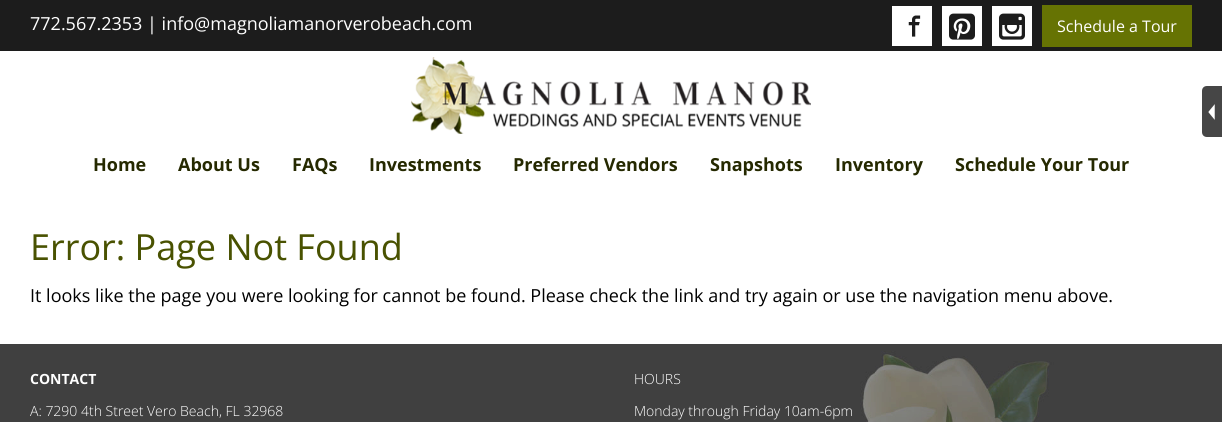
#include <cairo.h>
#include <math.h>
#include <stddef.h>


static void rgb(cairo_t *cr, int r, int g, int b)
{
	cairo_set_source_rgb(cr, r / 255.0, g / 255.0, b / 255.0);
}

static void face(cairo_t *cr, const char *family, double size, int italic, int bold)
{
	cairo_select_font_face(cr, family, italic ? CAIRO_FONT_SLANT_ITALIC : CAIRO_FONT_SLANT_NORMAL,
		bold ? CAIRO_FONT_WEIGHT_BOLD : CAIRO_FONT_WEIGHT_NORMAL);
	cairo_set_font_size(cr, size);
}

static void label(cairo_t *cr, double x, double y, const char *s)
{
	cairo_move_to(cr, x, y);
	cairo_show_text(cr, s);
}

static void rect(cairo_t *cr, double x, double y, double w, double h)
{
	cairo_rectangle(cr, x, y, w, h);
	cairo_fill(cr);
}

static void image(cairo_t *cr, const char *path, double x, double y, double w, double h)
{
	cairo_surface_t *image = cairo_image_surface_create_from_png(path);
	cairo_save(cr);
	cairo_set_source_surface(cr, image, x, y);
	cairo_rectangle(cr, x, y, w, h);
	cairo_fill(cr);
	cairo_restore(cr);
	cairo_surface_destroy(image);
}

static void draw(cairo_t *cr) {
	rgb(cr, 255, 255, 255);
	cairo_paint(cr);
	rgb(cr, 28, 28, 28);
	rect(cr, 0, 0, 1222, 51);
	face(cr, "Open Sans", 18, 0, 0);
	rgb(cr, 255, 255, 255);
	label(cr, 30, 30, "772.567.2353 | info@magnoliamanorverobeach.com");
	rect(cr, 892, 6, 40, 40);
	image(cr, "image0.png", 908, 15, 13, 22);
	rect(cr, 942, 6, 40, 40);
	image(cr, "image1.png", 949, 13, 26, 27);
	rect(cr, 992, 6, 40, 40);
	image(cr, "image2.png", 999, 13, 26, 27);
	rgb(cr, 102, 115, 3);
	rect(cr, 1042, 5, 150, 42);
	face(cr, "Open Sans", 16, 0, 0);
	rgb(cr, 255, 255, 255);
	label(cr, 1057, 32, "Schedule a Tour");
	image(cr, "image3.png", 411, 57, 400, 77);
	rgb(cr, 70, 70, 70);
	cairo_new_path(cr);
	cairo_move_to(cr, 1207, 86);
	cairo_line_to(cr, 1222, 86);
	cairo_line_to(cr, 1222, 137);
	cairo_line_to(cr, 1207, 137);
	cairo_curve_to(cr, 1204, 137, 1202, 135, 1202, 132);
	cairo_line_to(cr, 1202, 91);
	cairo_curve_to(cr, 1202, 88, 1204, 86, 1207, 86);
	cairo_close_path(cr);
	cairo_fill(cr);
	image(cr, "image4.png", 1208, 104, 7, 16);
	face(cr, "Open Sans", 18, 0, 1);
	rgb(cr, 37, 41, 0);
	label(cr, 93, 171, "Home");
	label(cr, 178, 171, "About Us");
	label(cr, 292, 171, "FAQs");
	label(cr, 369, 171, "Investments");
	label(cr, 513, 171, "Preferred Vendors");
	label(cr, 710, 171, "Snapshots");
	label(cr, 835, 171, "Inventory");
	label(cr, 955, 171, "Schedule Your Tour");
	face(cr, "Open Sans", 36, 0, 0);
	rgb(cr, 73, 82, 1);
	label(cr, 30, 260, "Error: Page Not Found");
	face(cr, "Open Sans", 18, 0, 0);
	rgb(cr, 0, 0, 0);
	label(cr, 30, 302, "It looks like the page you were looking for cannot be found. Please check the link and try again or use the navigation menu above.");
	image(cr, "image5.png", 0, 344, 1222, 78);
	image(cr, "image6.png", 0, 344, 1222, 78);
	face(cr, "Open Sans", 14, 0, 1);
	rgb(cr, 255, 255, 255);
	label(cr, 30, 384, "CONTACT");
	face(cr, "Open Sans Light", 14, 0, 0);
	label(cr, 30, 416, "A: 7290 4th Street Vero Beach, FL 32968");
	label(cr, 634, 384, "HOURS");
	label(cr, 634, 416, "Monday through Friday 10am-6pm");
}

int main(void) {
	cairo_surface_t *surface = cairo_image_surface_create(CAIRO_FORMAT_RGB24, 1222, 422);
	cairo_t *cr = cairo_create(surface);
	cairo_font_options_t *options = cairo_font_options_create();
	cairo_font_options_set_hint_metrics(options, CAIRO_HINT_METRICS_OFF);
	cairo_font_options_set_hint_style(options, CAIRO_HINT_STYLE_NONE);
	cairo_set_font_options(cr, options);
	cairo_set_miter_limit(cr, 4);
	draw(cr);
	cairo_surface_write_to_png(surface, "render.png");
	cairo_font_options_destroy(options);
	cairo_destroy(cr);
	cairo_surface_destroy(surface);
	return 0;
}
